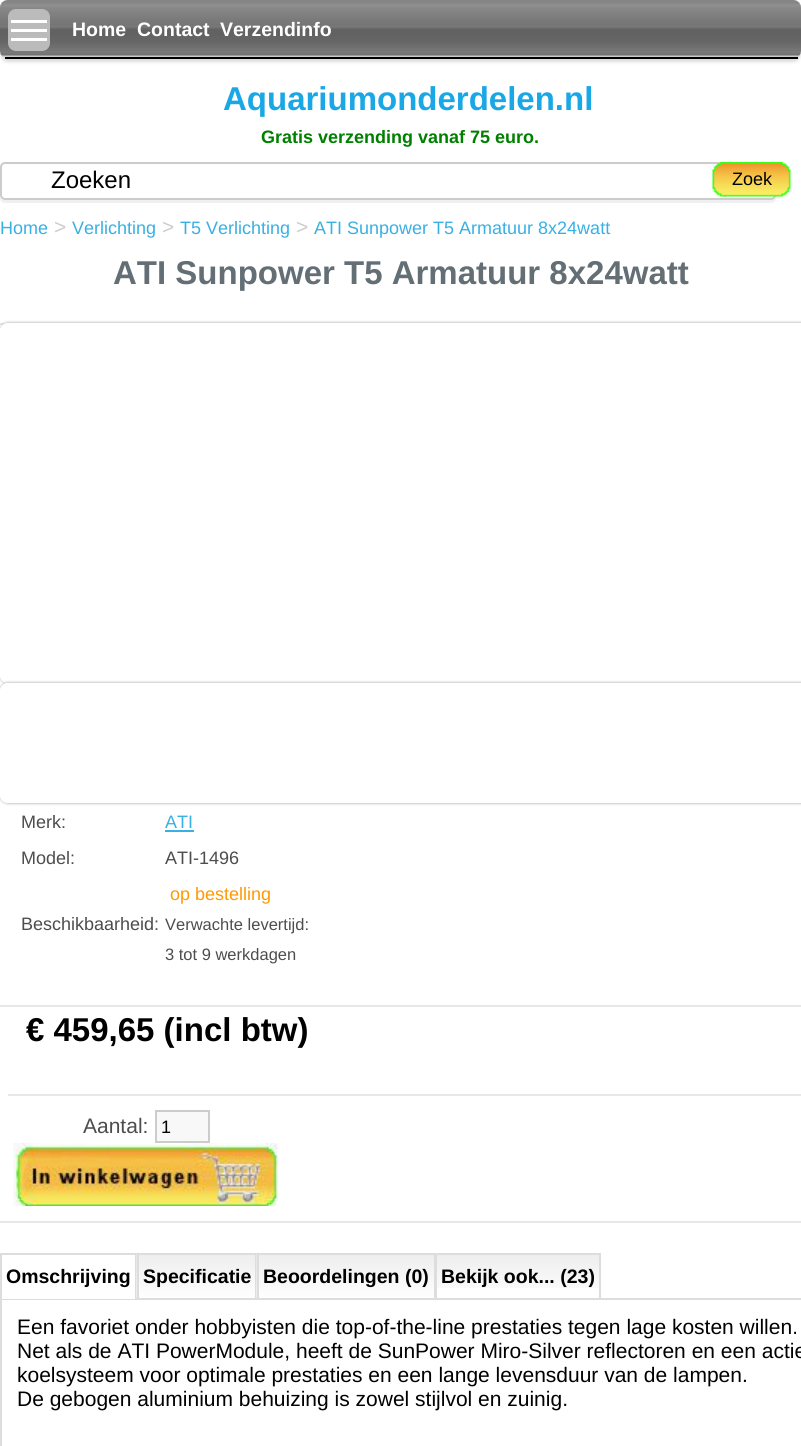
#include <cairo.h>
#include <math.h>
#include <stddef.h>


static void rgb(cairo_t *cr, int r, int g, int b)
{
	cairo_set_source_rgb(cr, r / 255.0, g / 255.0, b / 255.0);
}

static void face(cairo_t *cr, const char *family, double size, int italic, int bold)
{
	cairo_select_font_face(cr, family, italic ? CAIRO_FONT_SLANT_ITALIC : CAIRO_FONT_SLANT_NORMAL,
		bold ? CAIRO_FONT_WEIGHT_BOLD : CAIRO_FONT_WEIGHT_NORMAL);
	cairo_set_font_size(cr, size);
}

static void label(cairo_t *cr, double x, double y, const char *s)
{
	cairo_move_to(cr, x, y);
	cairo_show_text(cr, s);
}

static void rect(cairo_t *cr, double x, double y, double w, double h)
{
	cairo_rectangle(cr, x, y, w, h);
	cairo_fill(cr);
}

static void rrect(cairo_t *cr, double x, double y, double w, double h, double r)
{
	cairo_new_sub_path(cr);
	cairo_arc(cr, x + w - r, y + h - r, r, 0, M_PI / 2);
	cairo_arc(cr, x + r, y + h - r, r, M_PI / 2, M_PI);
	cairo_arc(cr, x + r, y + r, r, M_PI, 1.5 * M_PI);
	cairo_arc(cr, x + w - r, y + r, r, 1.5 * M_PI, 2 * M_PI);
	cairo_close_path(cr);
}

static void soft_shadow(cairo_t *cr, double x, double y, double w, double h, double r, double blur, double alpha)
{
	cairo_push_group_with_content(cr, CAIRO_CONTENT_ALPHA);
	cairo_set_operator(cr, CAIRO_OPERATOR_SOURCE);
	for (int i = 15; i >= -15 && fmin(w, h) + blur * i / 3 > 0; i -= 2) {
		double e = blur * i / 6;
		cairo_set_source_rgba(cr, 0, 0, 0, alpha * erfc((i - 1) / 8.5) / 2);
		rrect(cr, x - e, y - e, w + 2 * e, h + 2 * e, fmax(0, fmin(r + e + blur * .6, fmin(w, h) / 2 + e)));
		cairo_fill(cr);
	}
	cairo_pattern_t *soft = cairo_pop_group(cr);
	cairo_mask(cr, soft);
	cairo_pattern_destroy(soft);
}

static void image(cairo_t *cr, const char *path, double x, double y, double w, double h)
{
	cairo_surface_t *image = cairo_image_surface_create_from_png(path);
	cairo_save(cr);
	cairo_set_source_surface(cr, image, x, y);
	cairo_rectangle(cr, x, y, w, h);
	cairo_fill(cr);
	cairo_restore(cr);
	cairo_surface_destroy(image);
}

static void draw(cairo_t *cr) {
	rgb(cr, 255, 255, 255);
	cairo_paint(cr);
	rgb(cr, 221, 221, 221);
	soft_shadow(cr, 0, 3, 801, 59, 8, 1.5, 1);
	image(cr, "image0.png", 0, 0, 801, 58);
	rgb(cr, 0, 0, 0);
	rect(cr, 5, 57, 793, 2);
	rgb(cr, 187, 187, 187);
	rrect(cr, 8, 9, 42, 42, 8);
	cairo_fill(cr);
	rgb(cr, 255, 255, 255);
	rect(cr, 11, 20, 36, 3);
	rect(cr, 11, 29, 36, 3);
	rect(cr, 11, 38, 36, 3);
	face(cr, "Liberation Sans", 19.5, 0, 1);
	label(cr, 72, 36, "Home");
	label(cr, 137, 36, "Contact");
	label(cr, 220, 36, "Verzendinfo");
	face(cr, "Liberation Sans", 33, 0, 1);
	rgb(cr, 26, 167, 229);
	label(cr, 223, 110, "Aquariumonderdelen.nl");
	face(cr, "Liberation Sans", 18, 0, 1);
	rgb(cr, 0, 128, 0);
	label(cr, 261, 143, "Gratis verzending vanaf 75 euro.");
	rgb(cr, 240, 240, 240);
	cairo_new_path(cr);
	cairo_move_to(cr, 0, 195);
	cairo_line_to(cr, 0, 198);
	cairo_curve_to(cr, 0, 201, 2, 203, 5, 203);
	cairo_line_to(cr, 771, 203);
	cairo_curve_to(cr, 774, 203, 776, 201, 776, 198);
	cairo_line_to(cr, 776, 170);
	cairo_line_to(cr, 776, 168);
	cairo_line_to(cr, 776, 195);
	cairo_curve_to(cr, 776, 197, 773, 200, 771, 200);
	cairo_line_to(cr, 4, 200);
	cairo_curve_to(cr, 2, 200, 0, 197, 0, 195);
	cairo_close_path(cr);
	cairo_fill(cr);
	rgb(cr, 255, 255, 255);
	rrect(cr, 1, 163, 774, 36, 4);
	cairo_fill_preserve(cr);
	rgb(cr, 204, 204, 204);
	cairo_stroke(cr);
	face(cr, "Liberation Sans", 24, 0, 0);
	rgb(cr, 0, 0, 0);
	label(cr, 51, 188, "Zoeken");
	image(cr, "image1.png", 712, 162, 14, 35);
	image(cr, "image2.png", 724, 162, 67, 35);
	face(cr, "Liberation Sans", 18, 0, 0);
	label(cr, 732, 185, "Zoek");
	rgb(cr, 56, 176, 227);
	label(cr, 0, 234, "Home");
	face(cr, "Liberation Sans", 21, 0, 0);
	rgb(cr, 204, 204, 204);
	label(cr, 54, 234, ">");
	face(cr, "Liberation Sans", 18, 0, 0);
	rgb(cr, 56, 176, 227);
	label(cr, 72, 234, "Verlichting");
	face(cr, "Liberation Sans", 21, 0, 0);
	rgb(cr, 204, 204, 204);
	label(cr, 162, 234, ">");
	face(cr, "Liberation Sans", 18, 0, 0);
	rgb(cr, 56, 176, 227);
	label(cr, 180, 234, "T5 Verlichting");
	face(cr, "Liberation Sans", 21, 0, 0);
	rgb(cr, 204, 204, 204);
	label(cr, 296, 234, ">");
	face(cr, "Liberation Sans", 18, 0, 0);
	rgb(cr, 56, 176, 227);
	label(cr, 314, 234, "ATI Sunpower T5 Armatuur 8x24watt");
	face(cr, "Liberation Sans", 33, 0, 1);
	rgb(cr, 99, 110, 117);
	label(cr, 113, 284, "ATI Sunpower T5 Armatuur 8x24watt");
	rgb(cr, 231, 231, 231);
	rect(cr, 0, 323, 8, 2);
	cairo_save(cr);
	cairo_set_fill_rule(cr, CAIRO_FILL_RULE_EVEN_ODD);
	cairo_new_path(cr);
	cairo_move_to(cr, 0, 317);
	cairo_line_to(cr, 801, 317);
	cairo_line_to(cr, 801, 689);
	cairo_line_to(cr, 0, 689);
	cairo_close_path(cr);
	cairo_move_to(cr, 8, 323);
	cairo_line_to(cr, 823, 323);
	cairo_curve_to(cr, 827.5, 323, 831, 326.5, 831, 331);
	cairo_line_to(cr, 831, 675);
	cairo_curve_to(cr, 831, 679.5, 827.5, 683, 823, 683);
	cairo_line_to(cr, 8, 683);
	cairo_curve_to(cr, 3.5, 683, 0, 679.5, 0, 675);
	cairo_line_to(cr, 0, 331);
	cairo_curve_to(cr, 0, 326.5, 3.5, 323, 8, 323);
	cairo_close_path(cr);
	cairo_clip(cr);
	rgb(cr, 153, 153, 153);
	soft_shadow(cr, 0, 323, 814, 360, 8, 1.5, 1);
	cairo_restore(cr);
	rrect(cr, 7.5, 330.5, 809, 345, 0.5);
	rgb(cr, 255, 255, 255);
	cairo_set_line_width(cr, 15);
	cairo_stroke(cr);
	rgb(cr, 153, 153, 153);
	soft_shadow(cr, 0, 683, 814, 120, 8, 1.5, 1);
	rgb(cr, 255, 255, 255);
	cairo_new_path(cr);
	cairo_move_to(cr, 8, 683);
	cairo_line_to(cr, 801, 683);
	cairo_line_to(cr, 801, 803);
	cairo_line_to(cr, 8, 803);
	cairo_curve_to(cr, 3.5, 803, 0, 799.5, 0, 795);
	cairo_line_to(cr, 0, 691);
	cairo_curve_to(cr, 0, 686.5, 3.5, 683, 8, 683);
	cairo_close_path(cr);
	cairo_fill(cr);
	rrect(cr, 7.5, 690.5, 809, 105, 0.5);
	cairo_stroke(cr);
	rgb(cr, 231, 231, 231);
	rect(cr, 0, 1005, 801, 2);
	face(cr, "Liberation Sans", 18, 0, 0);
	rgb(cr, 77, 77, 77);
	label(cr, 21, 828, "Merk:");
	rgb(cr, 56, 176, 227);
	label(cr, 165, 828, "ATI");
	rect(cr, 165, 830, 29, 2);
	rgb(cr, 77, 77, 77);
	label(cr, 21, 864, "Model:");
	label(cr, 165, 864, "ATI-1496");
	label(cr, 21, 930, "Beschikbaarheid:");
	rgb(cr, 255, 153, 0);
	label(cr, 170, 900, "op bestelling");
	face(cr, "Liberation Sans", 16.5, 0, 0);
	rgb(cr, 77, 77, 77);
	label(cr, 165, 930, "Verwachte levertijd:");
	label(cr, 165, 960, "3 tot 9 werkdagen");
	rgb(cr, 231, 231, 231);
	rect(cr, 0, 1221, 801, 2);
	rect(cr, 8, 1094, 793, 2);
	face(cr, "Liberation Sans", 33, 0, 1);
	rgb(cr, 0, 0, 0);
	label(cr, 26, 1041, "€ 459,65 (incl btw)");
	face(cr, "Liberation Sans", 21, 0, 0);
	rgb(cr, 77, 77, 77);
	label(cr, 83, 1133, "Aantal:");
	rgb(cr, 248, 248, 248);
	cairo_rectangle(cr, 156, 1111, 53, 31);
	cairo_fill_preserve(cr);
	rgb(cr, 204, 204, 204);
	cairo_set_line_width(cr, 2);
	cairo_stroke(cr);
	face(cr, "Liberation Sans", 18, 0, 0);
	rgb(cr, 0, 0, 0);
	label(cr, 161, 1133, "1");
	image(cr, "image3.png", 13, 1143, 265, 63);
	rgb(cr, 221, 221, 221);
	rect(cr, 0, 1298, 801, 2);
	rgb(cr, 255, 255, 255);
	rect(cr, 2, 1298, 133, 1);
	rgb(cr, 221, 221, 221);
	rect(cr, 0, 1253, 137, 2);
	rect(cr, 135, 1253, 2, 46);
	rect(cr, 0, 1253, 2, 193);
	face(cr, "Liberation Sans", 19.5, 0, 1);
	rgb(cr, 0, 0, 0);
	label(cr, 6, 1283, "Omschrijving");
	image(cr, "image4.png", 136, 1254, 119, 44);
	rgb(cr, 221, 221, 221);
	rect(cr, 137, 1253, 120, 2);
	rect(cr, 255, 1253, 2, 45);
	rect(cr, 137, 1253, 2, 45);
	rgb(cr, 0, 0, 0);
	label(cr, 143, 1283, "Specificatie");
	image(cr, "image5.png", 256, 1254, 178, 44);
	rgb(cr, 221, 221, 221);
	rect(cr, 257, 1253, 343, 2);
	rect(cr, 434, 1253, 3, 45);
	rect(cr, 257, 1253, 2, 45);
	rgb(cr, 0, 0, 0);
	label(cr, 263, 1283, "Beoordelingen (0)");
	image(cr, "image6.png", 437, 1255, 162, 33);
	rgb(cr, 221, 221, 221);
	rect(cr, 599, 1253, 2, 45);
	rgb(cr, 0, 0, 0);
	label(cr, 441, 1283, "Bekijk ook... (23)");
	face(cr, "Liberation Sans", 21, 0, 0);
	label(cr, 17, 1334, "Een favoriet onder hobbyisten die top-of-the-line prestaties tegen lage kosten willen.");
	label(cr, 17, 1358, "Net als de ATI PowerModule, heeft de SunPower Miro-Silver reflectoren en een actie");
	label(cr, 17, 1382, "koelsysteem voor optimale prestaties en een lange levensduur van de lampen.");
	label(cr, 17, 1406, "De gebogen aluminium behuizing is zowel stijlvol en zuinig.");
}

int main(void) {
	cairo_surface_t *surface = cairo_image_surface_create(CAIRO_FORMAT_RGB24, 801, 1446);
	cairo_t *cr = cairo_create(surface);
	cairo_font_options_t *options = cairo_font_options_create();
	cairo_font_options_set_hint_metrics(options, CAIRO_HINT_METRICS_OFF);
	cairo_font_options_set_hint_style(options, CAIRO_HINT_STYLE_NONE);
	cairo_set_font_options(cr, options);
	cairo_set_miter_limit(cr, 4);
	draw(cr);
	cairo_surface_write_to_png(surface, "render.png");
	cairo_font_options_destroy(options);
	cairo_destroy(cr);
	cairo_surface_destroy(surface);
	return 0;
}
